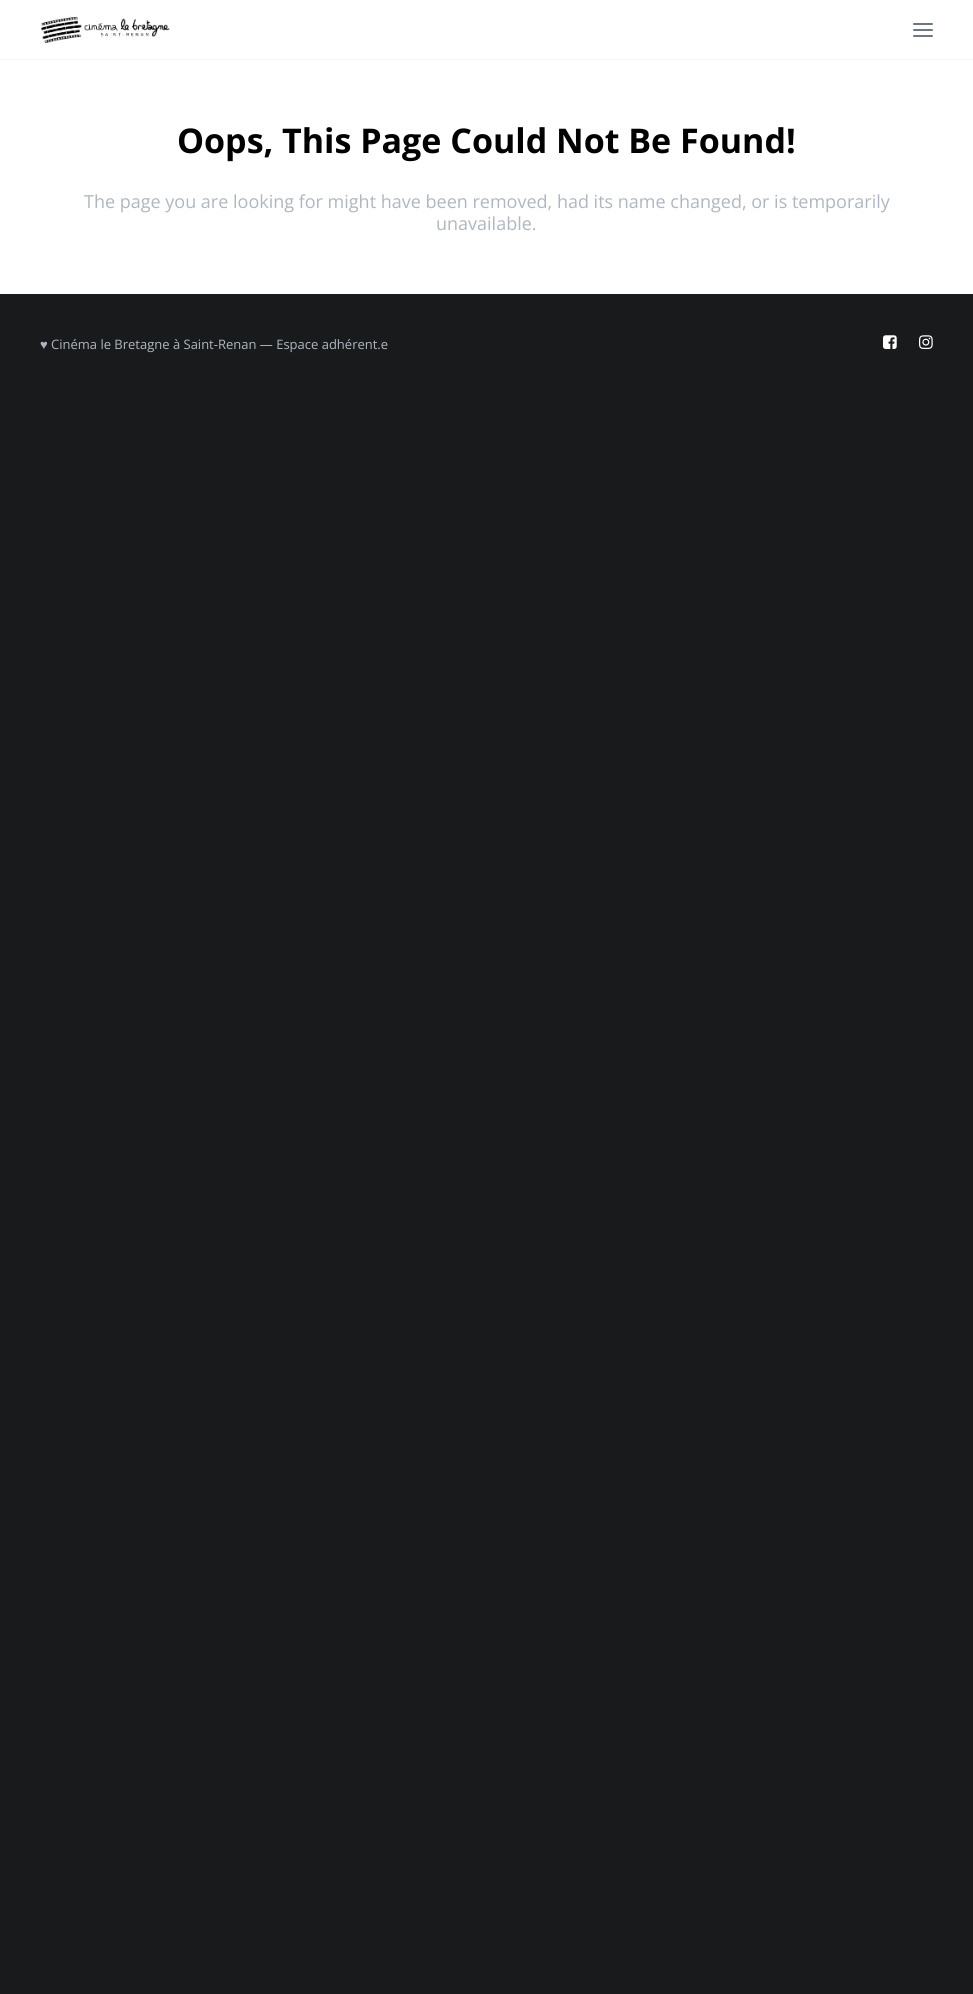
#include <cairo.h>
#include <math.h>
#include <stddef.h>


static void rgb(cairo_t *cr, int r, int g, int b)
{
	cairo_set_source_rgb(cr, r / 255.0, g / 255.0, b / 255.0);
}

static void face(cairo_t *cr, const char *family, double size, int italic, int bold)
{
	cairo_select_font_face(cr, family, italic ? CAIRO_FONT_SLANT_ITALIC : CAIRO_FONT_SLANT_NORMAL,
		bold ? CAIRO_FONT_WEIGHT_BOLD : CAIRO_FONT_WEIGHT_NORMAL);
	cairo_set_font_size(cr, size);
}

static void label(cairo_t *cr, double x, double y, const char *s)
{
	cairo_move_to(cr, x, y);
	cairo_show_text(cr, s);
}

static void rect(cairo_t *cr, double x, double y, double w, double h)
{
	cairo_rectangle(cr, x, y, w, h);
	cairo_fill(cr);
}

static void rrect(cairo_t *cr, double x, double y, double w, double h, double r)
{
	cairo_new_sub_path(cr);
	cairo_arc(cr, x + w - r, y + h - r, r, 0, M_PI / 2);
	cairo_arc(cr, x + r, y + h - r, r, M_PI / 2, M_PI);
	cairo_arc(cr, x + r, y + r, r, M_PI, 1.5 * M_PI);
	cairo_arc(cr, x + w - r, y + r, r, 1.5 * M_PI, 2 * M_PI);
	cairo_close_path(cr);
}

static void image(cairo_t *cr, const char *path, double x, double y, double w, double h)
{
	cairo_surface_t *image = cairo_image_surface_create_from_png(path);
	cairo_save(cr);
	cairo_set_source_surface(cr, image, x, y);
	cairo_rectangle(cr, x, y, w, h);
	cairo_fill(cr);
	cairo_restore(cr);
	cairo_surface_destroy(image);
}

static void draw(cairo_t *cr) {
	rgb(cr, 25, 26, 27);
	cairo_paint(cr);
	rgb(cr, 255, 255, 255);
	rect(cr, 0, 0, 973, 59);
	rgb(cr, 245, 245, 245);
	rect(cr, 0, 59, 973, 1);
	image(cr, "image0.png", 40, 17, 130, 26);
	rgb(cr, 109, 119, 131);
	rrect(cr, 913, 29, 20, 2, 1);
	cairo_fill(cr);
	rrect(cr, 913, 23, 20, 2, 1);
	cairo_fill(cr);
	rrect(cr, 913, 35, 20, 2, 1);
	cairo_fill(cr);
	rgb(cr, 255, 255, 255);
	rect(cr, 0, 60, 973, 234);
	face(cr, "Open Sans", 34, 0, 1);
	rgb(cr, 0, 0, 0);
	label(cr, 177, 153, "Oops, This Page Could Not Be Found!");
	face(cr, "Open Sans", 18, 0, 0);
	rgb(cr, 174, 183, 193);
	label(cr, 84, 208, "The page you are looking for might have been removed, had its name changed, or is temporarily");
	label(cr, 436, 230, "unavailable.");
	face(cr, "Liberation Serif", 13, 0, 0);
	label(cr, 40, 349, "♥");
	face(cr, "Open Sans", 13, 0, 0);
	label(cr, 51, 349, "Cinéma le Bretagne à Saint-Renan — Espace adhérent.e");
	image(cr, "image1.png", 883, 335, 14, 14);
	image(cr, "image2.png", 919, 335, 14, 14);
}

int main(void) {
	cairo_surface_t *surface = cairo_image_surface_create(CAIRO_FORMAT_RGB24, 973, 1994);
	cairo_t *cr = cairo_create(surface);
	cairo_font_options_t *options = cairo_font_options_create();
	cairo_font_options_set_hint_metrics(options, CAIRO_HINT_METRICS_OFF);
	cairo_font_options_set_hint_style(options, CAIRO_HINT_STYLE_NONE);
	cairo_set_font_options(cr, options);
	cairo_set_miter_limit(cr, 4);
	draw(cr);
	cairo_surface_write_to_png(surface, "render.png");
	cairo_font_options_destroy(options);
	cairo_destroy(cr);
	cairo_surface_destroy(surface);
	return 0;
}
